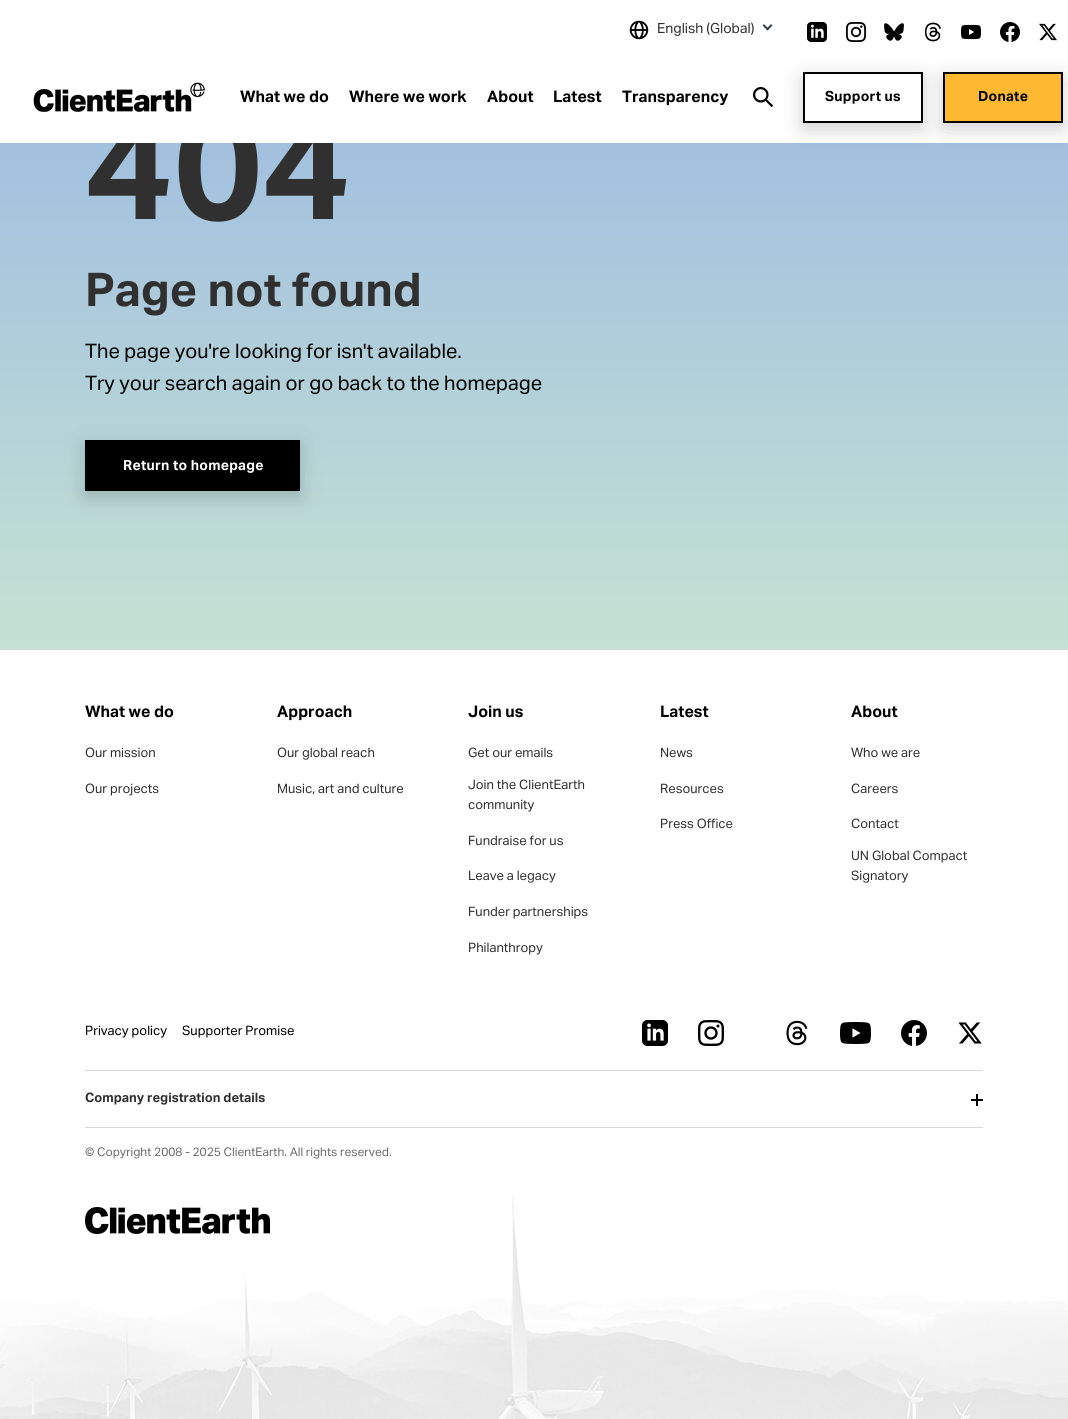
#include <cairo.h>
#include <math.h>
#include <stddef.h>


static void rgb(cairo_t *cr, int r, int g, int b)
{
	cairo_set_source_rgb(cr, r / 255.0, g / 255.0, b / 255.0);
}

static void face(cairo_t *cr, const char *family, double size, int italic, int bold)
{
	cairo_select_font_face(cr, family, italic ? CAIRO_FONT_SLANT_ITALIC : CAIRO_FONT_SLANT_NORMAL,
		bold ? CAIRO_FONT_WEIGHT_BOLD : CAIRO_FONT_WEIGHT_NORMAL);
	cairo_set_font_size(cr, size);
}

static void label(cairo_t *cr, double x, double y, const char *s)
{
	cairo_move_to(cr, x, y);
	cairo_show_text(cr, s);
}

static void tracked(cairo_t *cr, double x, double y, const char *s, double letter, double word)
{
	cairo_move_to(cr, x, y);
	while (*s) {
		char ch[5] = {0};
		int n = 0;
		do ch[n++] = *s++; while ((*s & 0xC0) == 0x80);
		cairo_show_text(cr, ch);
		cairo_rel_move_to(cr, letter + word * (*ch == ' '), 0);
	}
}

static void rect(cairo_t *cr, double x, double y, double w, double h)
{
	cairo_rectangle(cr, x, y, w, h);
	cairo_fill(cr);
}

static void rrect(cairo_t *cr, double x, double y, double w, double h, double r)
{
	cairo_new_sub_path(cr);
	cairo_arc(cr, x + w - r, y + h - r, r, 0, M_PI / 2);
	cairo_arc(cr, x + r, y + h - r, r, M_PI / 2, M_PI);
	cairo_arc(cr, x + r, y + r, r, M_PI, 1.5 * M_PI);
	cairo_arc(cr, x + w - r, y + r, r, 1.5 * M_PI, 2 * M_PI);
	cairo_close_path(cr);
}

static void soft_shadow(cairo_t *cr, double x, double y, double w, double h, double r, double blur, double alpha)
{
	cairo_push_group_with_content(cr, CAIRO_CONTENT_ALPHA);
	cairo_set_operator(cr, CAIRO_OPERATOR_SOURCE);
	for (int i = 15; i >= -15 && fmin(w, h) + blur * i / 3 > 0; i -= 2) {
		double e = blur * i / 6;
		cairo_set_source_rgba(cr, 0, 0, 0, alpha * erfc((i - 1) / 8.5) / 2);
		rrect(cr, x - e, y - e, w + 2 * e, h + 2 * e, fmax(0, fmin(r + e + blur * .6, fmin(w, h) / 2 + e)));
		cairo_fill(cr);
	}
	cairo_pattern_t *soft = cairo_pop_group(cr);
	cairo_mask(cr, soft);
	cairo_pattern_destroy(soft);
}

static void image(cairo_t *cr, const char *path, double x, double y, double w, double h)
{
	cairo_surface_t *image = cairo_image_surface_create_from_png(path);
	cairo_save(cr);
	cairo_set_source_surface(cr, image, x, y);
	cairo_rectangle(cr, x, y, w, h);
	cairo_fill(cr);
	cairo_restore(cr);
	cairo_surface_destroy(image);
}

static void draw(cairo_t *cr) {
	cairo_pattern_t *gradient;
	rgb(cr, 255, 255, 255);
	cairo_paint(cr);
	gradient = cairo_pattern_create_linear(534, -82, 534, 649);
	cairo_pattern_add_color_stop_rgba(gradient, 0, 0.506, 0.557, 0.78, 1);
	cairo_pattern_add_color_stop_rgba(gradient, 0.28, 0.631, 0.749, 0.875, 1);
	cairo_pattern_add_color_stop_rgba(gradient, 1, 0.769, 0.886, 0.827, 1);
	cairo_set_source(cr, gradient);
	cairo_pattern_destroy(gradient);
	rect(cr, 0, 143, 1068, 506);
	face(cr, "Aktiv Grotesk", 150, 0, 1);
	rgb(cr, 48, 48, 48);
	label(cr, 85, 219, "404");
	rgb(cr, 255, 255, 255);
	rect(cr, 117, 112, 217, 31);
	image(cr, "image0.png", 629, 20, 20, 20);
	face(cr, "Aktiv Grotesk", 14, 0, 0);
	rgb(cr, 48, 48, 48);
	label(cr, 657, 33, "English (Global)");
	image(cr, "image1.png", 763, 24, 10, 7);
	image(cr, "image2.png", 807, 22, 20, 20);
	image(cr, "image3.png", 846, 22, 20, 20);
	image(cr, "image4.png", 884, 23, 20, 18);
	image(cr, "image5.png", 924, 22, 17, 20);
	image(cr, "image6.png", 961, 24, 20, 16);
	image(cr, "image7.png", 1000, 22, 20, 20);
	image(cr, "image8.png", 1039, 23, 18, 18);
	image(cr, "image9.png", 33, 82, 172, 30);
	face(cr, "Aktiv Grotesk", 16, 0, 1);
	rgb(cr, 0, 0, 0);
	label(cr, 240, 102, "What we do");
	label(cr, 349, 102, "Where we work");
	label(cr, 487, 102, "About");
	label(cr, 553, 102, "Latest");
	label(cr, 622, 102, "Transparency");
	image(cr, "image10.png", 753, 87, 20, 20);
	cairo_save(cr);
	cairo_set_fill_rule(cr, CAIRO_FILL_RULE_EVEN_ODD);
	cairo_new_path(cr);
	cairo_move_to(cr, 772, 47);
	cairo_line_to(cr, 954, 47);
	cairo_line_to(cr, 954, 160);
	cairo_line_to(cr, 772, 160);
	cairo_close_path(cr);
	cairo_move_to(cr, 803, 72);
	cairo_line_to(cr, 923, 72);
	cairo_line_to(cr, 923, 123);
	cairo_line_to(cr, 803, 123);
	cairo_close_path(cr);
	cairo_clip(cr);
	rgb(cr, 0, 0, 0);
	soft_shadow(cr, 803, 78, 120, 51, 0, 10, 0.18);
	cairo_restore(cr);
	cairo_rectangle(cr, 804, 73, 118, 49);
	cairo_stroke(cr);
	face(cr, "Aktiv Grotesk", 14, 0, 1);
	tracked(cr, 825, 101, "Support us", 0.25, 0);
	rgb(cr, 0, 0, 0);
	soft_shadow(cr, 943, 78, 120, 51, 0, 10, 0.18);
	rgb(cr, 255, 185, 49);
	cairo_rectangle(cr, 944, 73, 118, 49);
	cairo_fill_preserve(cr);
	rgb(cr, 0, 0, 0);
	cairo_stroke(cr);
	tracked(cr, 978, 101, "Donate", 0.25, 0);
	face(cr, "Aktiv Grotesk", 46.5, 0, 1);
	rgb(cr, 48, 48, 48);
	label(cr, 85, 306, "Page not found");
	face(cr, "Aktiv Grotesk", 20, 0, 0);
	rgb(cr, 0, 0, 0);
	label(cr, 85, 358, "The page you're looking for isn't available.");
	label(cr, 85, 390, "Try your search again or go back to the homepage");
	rgb(cr, 0, 0, 0);
	soft_shadow(cr, 85, 446, 215, 51, 0, 10, 0.18);
	rgb(cr, 0, 0, 0);
	rect(cr, 85, 440, 215, 51);
	face(cr, "Aktiv Grotesk", 14, 0, 1);
	rgb(cr, 255, 255, 255);
	tracked(cr, 123, 470, "Return to homepage", 0.25, 0);
	rgb(cr, 215, 215, 215);
	rect(cr, 0, 649, 1068, 1);
	face(cr, "Aktiv Grotesk", 16, 0, 1);
	rgb(cr, 0, 0, 0);
	label(cr, 85, 717, "What we do");
	face(cr, "Aktiv Grotesk", 13, 0, 0);
	rgb(cr, 48, 48, 48);
	label(cr, 85, 757, "Our mission");
	label(cr, 85, 793, "Our projects");
	face(cr, "Aktiv Grotesk", 16, 0, 1);
	rgb(cr, 0, 0, 0);
	label(cr, 277, 717, "Approach");
	face(cr, "Aktiv Grotesk", 13, 0, 0);
	rgb(cr, 48, 48, 48);
	label(cr, 277, 757, "Our global reach");
	label(cr, 277, 793, "Music, art and culture");
	face(cr, "Aktiv Grotesk", 16, 0, 1);
	rgb(cr, 0, 0, 0);
	label(cr, 468, 717, "Join us");
	face(cr, "Aktiv Grotesk", 13, 0, 0);
	rgb(cr, 48, 48, 48);
	label(cr, 468, 757, "Get our emails");
	label(cr, 468, 789, "Join the ClientEarth");
	label(cr, 468, 809, "community");
	label(cr, 468, 845, "Fundraise for us");
	label(cr, 468, 880, "Leave a legacy");
	label(cr, 468, 916, "Funder partnerships");
	label(cr, 468, 952, "Philanthropy");
	face(cr, "Aktiv Grotesk", 16, 0, 1);
	rgb(cr, 0, 0, 0);
	label(cr, 660, 717, "Latest");
	face(cr, "Aktiv Grotesk", 13, 0, 0);
	rgb(cr, 48, 48, 48);
	label(cr, 660, 757, "News");
	label(cr, 660, 793, "Resources");
	label(cr, 660, 828, "Press Office");
	face(cr, "Aktiv Grotesk", 16, 0, 1);
	rgb(cr, 0, 0, 0);
	label(cr, 851, 717, "About");
	face(cr, "Aktiv Grotesk", 13, 0, 0);
	rgb(cr, 48, 48, 48);
	label(cr, 851, 757, "Who we are");
	label(cr, 851, 793, "Careers");
	label(cr, 851, 828, "Contact");
	label(cr, 851, 860, "UN Global Compact");
	label(cr, 851, 880, "Signatory");
	rgb(cr, 0, 0, 0);
	label(cr, 85, 1035, "Privacy policy");
	label(cr, 182, 1035, "Supporter Promise");
	image(cr, "image11.png", 642, 1020, 26, 26);
	image(cr, "image12.png", 698, 1020, 26, 26);
	image(cr, "image13.png", 786, 1020, 22, 26);
	image(cr, "image14.png", 840, 1022, 31, 22);
	image(cr, "image15.png", 901, 1020, 26, 26);
	image(cr, "image16.png", 958, 1022, 24, 22);
	rgb(cr, 215, 215, 215);
	rect(cr, 85, 1070, 898, 1);
	rect(cr, 85, 1127, 898, 1);
	face(cr, "Aktiv Grotesk", 13, 0, 1);
	rgb(cr, 48, 48, 48);
	label(cr, 85, 1102, "Company registration details");
	rgb(cr, 0, 0, 0);
	rect(cr, 971, 1099, 12, 2);
	rect(cr, 976, 1094, 2, 12);
	face(cr, "Aktiv Grotesk", 12, 0, 0);
	rgb(cr, 109, 109, 109);
	label(cr, 85, 1156, "© Copyright 2008 - 2025 ClientEarth. All rights reserved.");
	image(cr, "image18.png", 0, 1196, 1068, 223);
	image(cr, "image17.png", 85, 1207, 185, 27);
}

int main(void) {
	cairo_surface_t *surface = cairo_image_surface_create(CAIRO_FORMAT_RGB24, 1068, 1419);
	cairo_t *cr = cairo_create(surface);
	cairo_font_options_t *options = cairo_font_options_create();
	cairo_font_options_set_hint_metrics(options, CAIRO_HINT_METRICS_OFF);
	cairo_font_options_set_hint_style(options, CAIRO_HINT_STYLE_NONE);
	cairo_set_font_options(cr, options);
	cairo_set_miter_limit(cr, 4);
	draw(cr);
	cairo_surface_write_to_png(surface, "render.png");
	cairo_font_options_destroy(options);
	cairo_destroy(cr);
	cairo_surface_destroy(surface);
	return 0;
}
